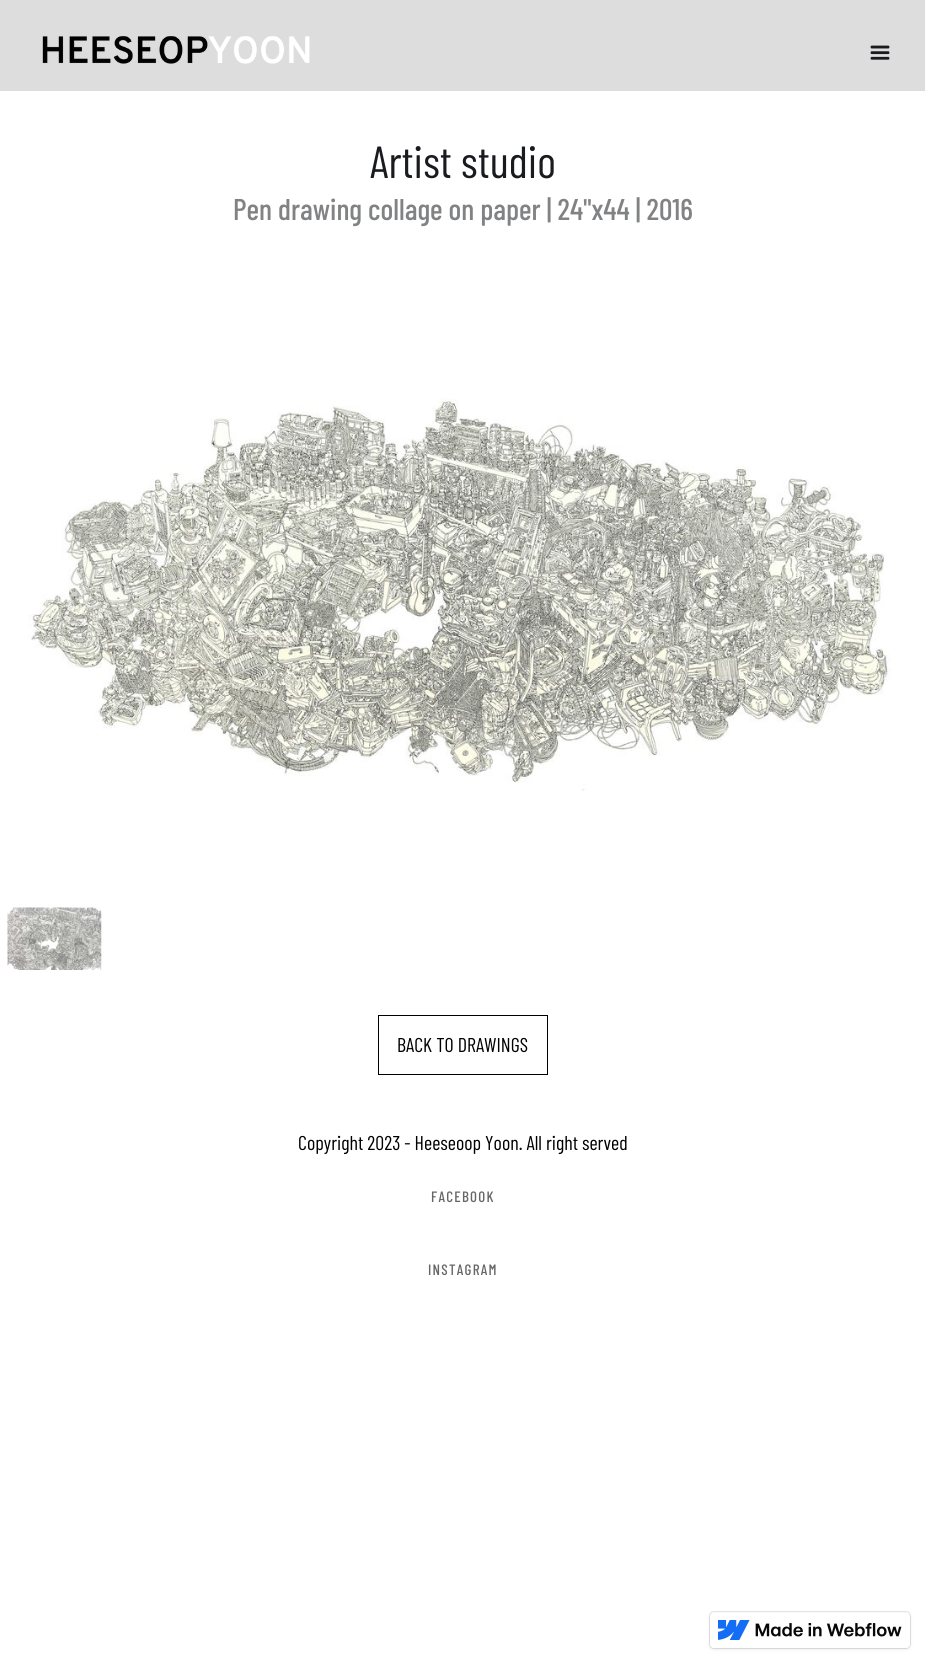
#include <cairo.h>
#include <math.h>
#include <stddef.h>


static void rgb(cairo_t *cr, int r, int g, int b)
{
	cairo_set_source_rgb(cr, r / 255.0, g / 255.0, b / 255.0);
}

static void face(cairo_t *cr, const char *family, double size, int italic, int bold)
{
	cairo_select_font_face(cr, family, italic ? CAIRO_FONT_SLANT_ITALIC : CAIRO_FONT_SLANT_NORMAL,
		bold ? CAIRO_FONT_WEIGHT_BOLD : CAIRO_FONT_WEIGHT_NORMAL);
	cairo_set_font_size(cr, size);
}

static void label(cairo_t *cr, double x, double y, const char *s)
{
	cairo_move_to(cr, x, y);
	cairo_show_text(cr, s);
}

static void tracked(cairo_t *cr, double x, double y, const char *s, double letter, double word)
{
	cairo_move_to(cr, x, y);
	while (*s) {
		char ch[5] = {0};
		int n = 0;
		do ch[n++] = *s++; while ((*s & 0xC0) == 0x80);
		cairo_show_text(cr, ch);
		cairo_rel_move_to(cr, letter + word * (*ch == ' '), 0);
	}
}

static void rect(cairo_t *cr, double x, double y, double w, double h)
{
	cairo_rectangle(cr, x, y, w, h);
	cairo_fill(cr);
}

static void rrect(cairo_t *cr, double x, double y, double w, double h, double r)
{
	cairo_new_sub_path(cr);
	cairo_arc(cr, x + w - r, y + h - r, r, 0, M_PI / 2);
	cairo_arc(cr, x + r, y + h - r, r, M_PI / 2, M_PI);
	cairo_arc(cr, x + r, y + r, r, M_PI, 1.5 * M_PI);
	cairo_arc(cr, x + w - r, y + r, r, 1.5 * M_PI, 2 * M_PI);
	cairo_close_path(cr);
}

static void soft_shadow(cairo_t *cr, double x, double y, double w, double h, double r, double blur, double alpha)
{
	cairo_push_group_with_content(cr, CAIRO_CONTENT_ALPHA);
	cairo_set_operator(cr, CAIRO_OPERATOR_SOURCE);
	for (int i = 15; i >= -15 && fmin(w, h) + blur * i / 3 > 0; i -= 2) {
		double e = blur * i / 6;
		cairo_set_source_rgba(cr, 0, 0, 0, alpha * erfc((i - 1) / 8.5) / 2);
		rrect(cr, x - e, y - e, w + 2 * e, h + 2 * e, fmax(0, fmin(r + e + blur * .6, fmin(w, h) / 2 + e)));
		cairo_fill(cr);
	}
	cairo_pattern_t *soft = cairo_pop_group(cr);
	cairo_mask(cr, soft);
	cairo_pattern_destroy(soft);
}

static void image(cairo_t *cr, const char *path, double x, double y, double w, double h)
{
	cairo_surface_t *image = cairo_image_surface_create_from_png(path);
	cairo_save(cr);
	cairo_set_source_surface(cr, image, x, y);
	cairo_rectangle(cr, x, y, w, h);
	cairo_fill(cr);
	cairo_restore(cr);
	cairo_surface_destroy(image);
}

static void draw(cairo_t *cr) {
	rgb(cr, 255, 255, 255);
	cairo_paint(cr);
	rgb(cr, 221, 221, 221);
	rect(cr, 0, 0, 925, 91);
	image(cr, "image0.png", 42, 36, 268, 28);
	image(cr, "image1.png", 870, 45, 20, 15);
	face(cr, "Barlow Condensed", 45, 0, 0);
	rgb(cr, 26, 27, 31);
	label(cr, 370, 178, "Artist studio");
	face(cr, "Barlow Condensed Medium", 30, 0, 0);
	rgb(cr, 129, 130, 132);
	label(cr, 233, 220, "Pen drawing collage on paper | 24\"x44 | 2016");
	image(cr, "image2.png", 28, 398, 863, 393);
	image(cr, "image3.png", 7, 907, 95, 63);
	cairo_rectangle(cr, 378.5, 1015.5, 169, 59);
	rgb(cr, 0, 0, 0);
	cairo_set_line_width(cr, 1);
	cairo_stroke(cr);
	face(cr, "Barlow Condensed", 20, 0, 0);
	label(cr, 397, 1052, "BACK TO DRAWINGS");
	label(cr, 298, 1150, "Copyright 2023 - Heeseoop Yoon. All right served");
	face(cr, "Barlow Condensed Medium", 15, 0, 0);
	rgb(cr, 102, 102, 102);
	tracked(cr, 431, 1202, "FACEBOOK", 1.25, 0);
	tracked(cr, 428, 1275, "INSTAGRAM", 1.25, 0);
	rgb(cr, 0, 0, 0);
	soft_shadow(cr, 710, 1614, 200, 35, 4, 2, 0.1);
	rrect(cr, 709.5, 1611.5, 201, 37, 4.5);
	cairo_set_source_rgba(cr, 0, 0, 0, 0.1);
	cairo_stroke(cr);
	rgb(cr, 255, 255, 255);
	rrect(cr, 710, 1613, 200, 35, 4);
	cairo_fill(cr);
	image(cr, "image4.png", 718, 1620, 32, 20);
	image(cr, "image5.png", 755, 1623, 147, 14);
}

int main(void) {
	cairo_surface_t *surface = cairo_image_surface_create(CAIRO_FORMAT_RGB24, 925, 1662);
	cairo_t *cr = cairo_create(surface);
	cairo_font_options_t *options = cairo_font_options_create();
	cairo_font_options_set_hint_metrics(options, CAIRO_HINT_METRICS_OFF);
	cairo_font_options_set_hint_style(options, CAIRO_HINT_STYLE_NONE);
	cairo_set_font_options(cr, options);
	cairo_set_miter_limit(cr, 4);
	draw(cr);
	cairo_surface_write_to_png(surface, "render.png");
	cairo_font_options_destroy(options);
	cairo_destroy(cr);
	cairo_surface_destroy(surface);
	return 0;
}
